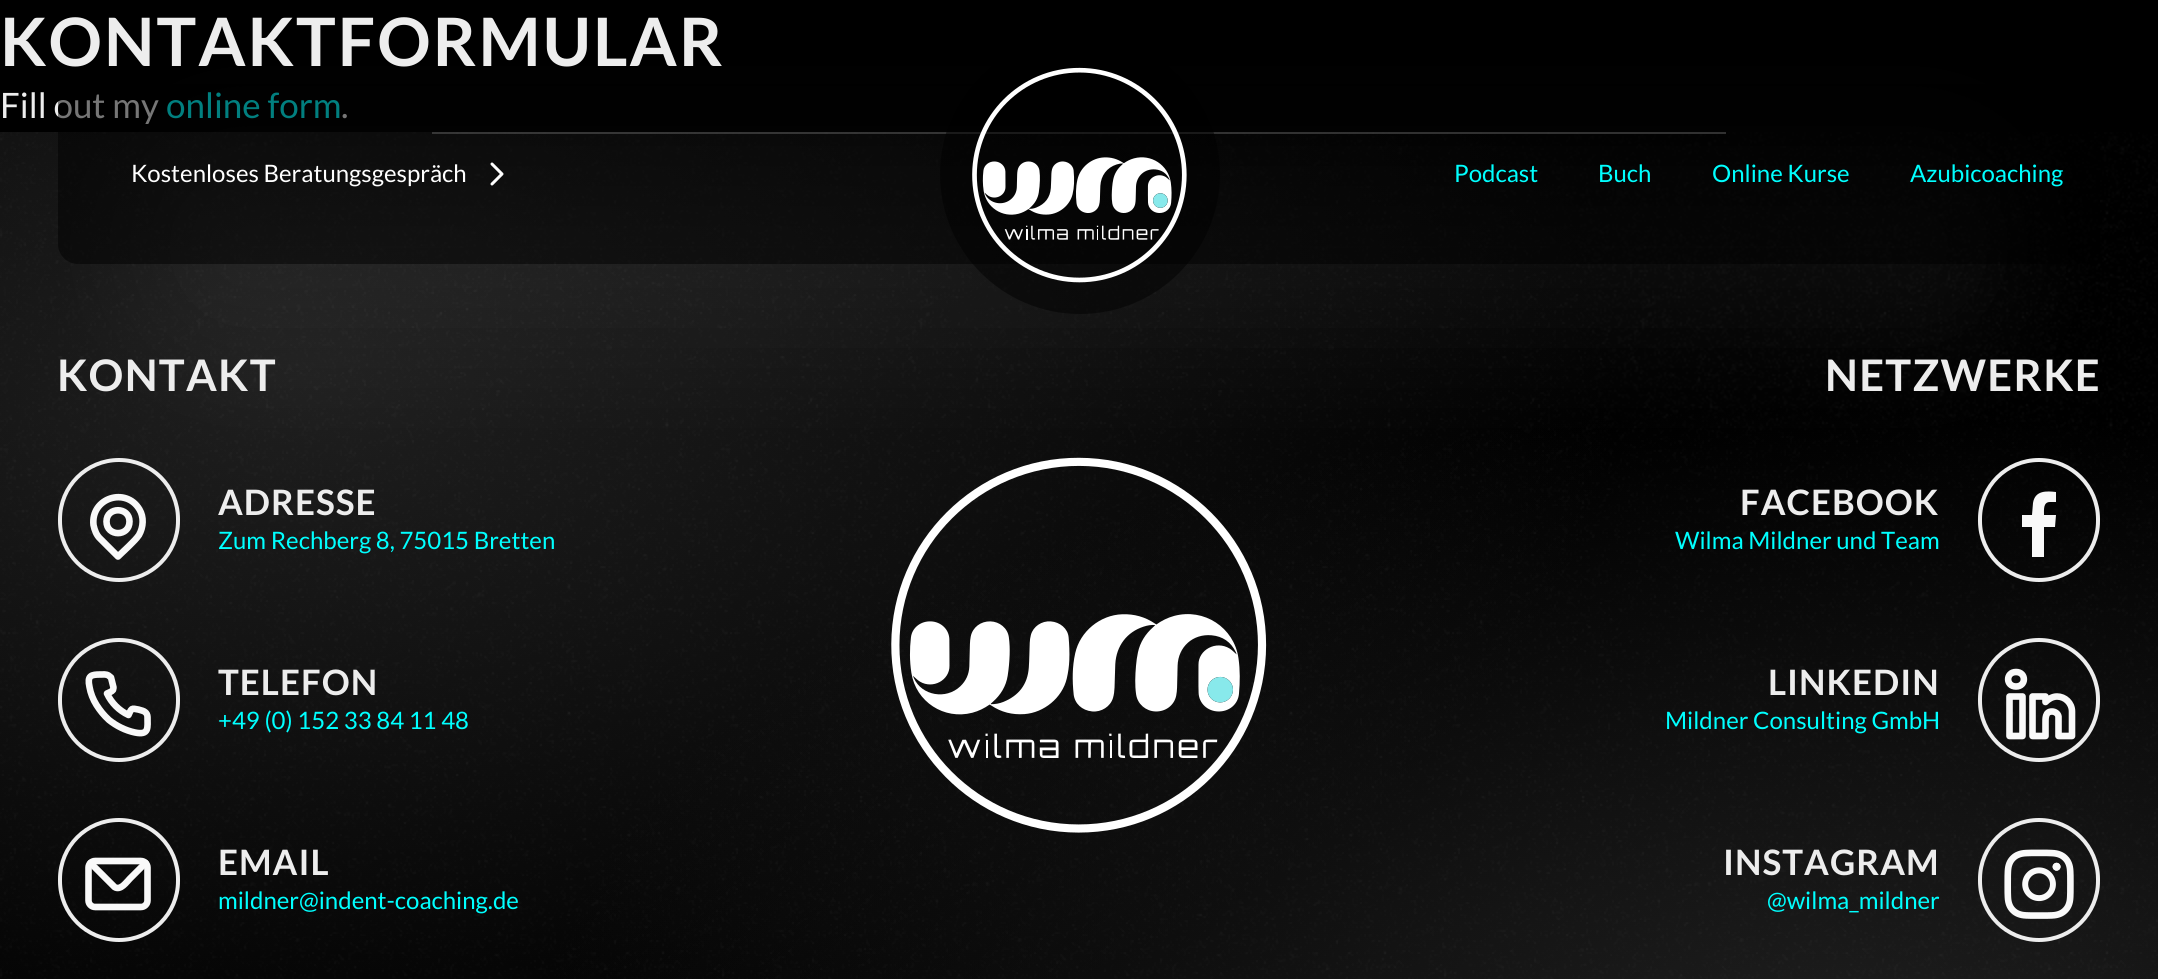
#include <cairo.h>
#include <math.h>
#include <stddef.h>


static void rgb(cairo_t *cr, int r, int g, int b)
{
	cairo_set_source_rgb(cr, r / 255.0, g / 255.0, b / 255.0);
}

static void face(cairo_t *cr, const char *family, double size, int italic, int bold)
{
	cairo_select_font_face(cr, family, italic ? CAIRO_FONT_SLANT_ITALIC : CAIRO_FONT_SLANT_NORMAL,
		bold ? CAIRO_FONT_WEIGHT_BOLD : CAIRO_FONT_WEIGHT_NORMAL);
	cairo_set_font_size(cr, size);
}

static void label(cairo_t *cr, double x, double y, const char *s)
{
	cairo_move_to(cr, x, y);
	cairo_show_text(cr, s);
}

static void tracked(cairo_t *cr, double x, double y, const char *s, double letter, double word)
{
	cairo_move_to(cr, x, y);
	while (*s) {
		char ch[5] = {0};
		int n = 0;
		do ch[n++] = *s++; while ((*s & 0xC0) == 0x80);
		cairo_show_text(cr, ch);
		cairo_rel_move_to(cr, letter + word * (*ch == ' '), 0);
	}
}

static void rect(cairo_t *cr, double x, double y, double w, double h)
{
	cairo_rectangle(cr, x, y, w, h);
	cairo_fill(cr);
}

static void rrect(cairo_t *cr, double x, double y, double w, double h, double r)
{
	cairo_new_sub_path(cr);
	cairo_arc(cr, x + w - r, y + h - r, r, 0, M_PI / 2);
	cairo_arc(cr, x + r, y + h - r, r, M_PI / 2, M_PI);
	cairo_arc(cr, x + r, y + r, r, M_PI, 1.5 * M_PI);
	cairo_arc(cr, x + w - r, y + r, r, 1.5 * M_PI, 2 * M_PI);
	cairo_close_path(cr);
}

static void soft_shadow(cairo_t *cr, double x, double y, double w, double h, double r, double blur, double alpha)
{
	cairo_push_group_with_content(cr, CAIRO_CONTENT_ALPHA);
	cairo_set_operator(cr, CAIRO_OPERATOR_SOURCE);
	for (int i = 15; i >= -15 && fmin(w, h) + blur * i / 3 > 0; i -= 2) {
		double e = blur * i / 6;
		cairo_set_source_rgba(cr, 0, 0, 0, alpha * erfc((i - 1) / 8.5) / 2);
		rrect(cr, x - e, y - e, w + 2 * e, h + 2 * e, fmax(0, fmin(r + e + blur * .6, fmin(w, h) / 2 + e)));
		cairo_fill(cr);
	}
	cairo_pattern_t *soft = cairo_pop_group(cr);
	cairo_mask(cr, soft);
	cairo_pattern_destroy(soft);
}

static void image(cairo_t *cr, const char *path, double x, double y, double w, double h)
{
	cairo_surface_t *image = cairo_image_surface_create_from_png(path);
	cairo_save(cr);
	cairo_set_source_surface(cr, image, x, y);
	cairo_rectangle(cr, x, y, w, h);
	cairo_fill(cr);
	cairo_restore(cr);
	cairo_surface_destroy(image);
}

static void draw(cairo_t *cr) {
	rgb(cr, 0, 0, 0);
	cairo_paint(cr);
	face(cr, "Lato", 66.75, 0, 1);
	rgb(cr, 237, 237, 237);
	tracked(cr, 0, 66, "KONTAKTFORMULAR", 2, 0);
	face(cr, "Lato", 35, 0, 0);
	label(cr, 0, 118, "Fill out my");
	rgb(cr, 0, 255, 255);
	label(cr, 166, 118, "online form");
	rgb(cr, 237, 237, 237);
	label(cr, 341, 118, ".");
	image(cr, "image2.png", 0, 132, 2158, 847);
	cairo_set_source_rgba(cr, 0.929, 0.929, 0.929, 0.4);
	rect(cr, 432, 132, 1294, 2);
	rrect(cr, 60, 460, 118, 120, 59);
	rgb(cr, 237, 237, 237);
	cairo_set_line_width(cr, 4);
	cairo_stroke(cr);
	cairo_new_path(cr);
	cairo_move_to(cr, 100.5, 539);
	cairo_curve_to(cr, 96.5, 535.5, 94.5, 530, 93.5, 525);
	cairo_curve_to(cr, 90.5, 498, 126, 486.5, 139.5, 509.5);
	cairo_curve_to(cr, 144, 517, 143.5, 527, 139, 535);
	cairo_curve_to(cr, 135, 541, 123.5, 551, 118, 556.5);
	cairo_close_path(cr);
	rgb(cr, 249, 249, 249);
	cairo_set_line_width(cr, 6.6);
	cairo_set_line_cap(cr, CAIRO_LINE_CAP_ROUND);
	cairo_set_line_join(cr, CAIRO_LINE_JOIN_ROUND);
	cairo_stroke(cr);
	cairo_new_path(cr);
	cairo_move_to(cr, 129.5, 521.5);
	cairo_curve_to(cr, 129.5, 537, 106.5, 537, 106.5, 521.5);
	cairo_curve_to(cr, 106.5, 506.5, 129.5, 506.5, 129.5, 521.5);
	cairo_close_path(cr);
	cairo_stroke(cr);
	image(cr, "image3.png", 891, 457, 376, 376);
	rrect(cr, 1980, 460, 118, 120, 59);
	rgb(cr, 237, 237, 237);
	cairo_set_line_width(cr, 4);
	cairo_set_line_cap(cr, CAIRO_LINE_CAP_BUTT);
	cairo_set_line_join(cr, CAIRO_LINE_JOIN_MITER);
	cairo_stroke(cr);
	rgb(cr, 249, 249, 249);
	cairo_new_path(cr);
	cairo_move_to(cr, 2050, 502);
	cairo_line_to(cr, 2056, 502);
	cairo_line_to(cr, 2056, 492);
	cairo_curve_to(cr, 2047, 491, 2035, 490, 2033, 503);
	cairo_line_to(cr, 2032, 515);
	cairo_line_to(cr, 2022, 515);
	cairo_line_to(cr, 2022, 527);
	cairo_line_to(cr, 2032, 527);
	cairo_line_to(cr, 2032, 557);
	cairo_line_to(cr, 2044, 557);
	cairo_line_to(cr, 2044, 527);
	cairo_line_to(cr, 2055, 527);
	cairo_line_to(cr, 2056, 515);
	cairo_line_to(cr, 2044, 515);
	cairo_curve_to(cr, 2044, 510, 2043, 502, 2050, 502);
	cairo_close_path(cr);
	cairo_fill(cr);
	rgb(cr, 255, 255, 255);
	soft_shadow(cr, 160, 156, 1838, 182, 91, 60, 0.05);
	cairo_set_source_rgba(cr, 0, 0, 0, 0.5);
	rrect(cr, 58, 84, 2042, 180, 20);
	cairo_fill(cr);
	cairo_arc(cr, 1080, 174, 140, 0, 2 * M_PI);
	cairo_fill(cr);
	image(cr, "image0.png", 972, 67, 215, 216);
	face(cr, "Lato", 24, 0, 0);
	rgb(cr, 255, 255, 255);
	label(cr, 131, 182, "Kostenloses Beratungsgespräch");
	image(cr, "image1.png", 490, 162, 14, 24);
	rgb(cr, 0, 255, 255);
	label(cr, 1454, 182, "Podcast");
	label(cr, 1598, 182, "Buch");
	label(cr, 1712, 182, "Online Kurse");
	label(cr, 1910, 182, "Azubicoaching");
	face(cr, "Lato", 43.5, 0, 1);
	rgb(cr, 237, 237, 237);
	tracked(cr, 57, 391, "KONTAKT", 1.25, 0);
	face(cr, "Lato", 35, 0, 1);
	tracked(cr, 218, 515, "ADRESSE", 1, 0);
	face(cr, "Lato", 24, 0, 0);
	rgb(cr, 0, 255, 255);
	label(cr, 218, 549, "Zum Rechberg 8, 75015 Bretten");
	rrect(cr, 60, 640, 118, 120, 59);
	rgb(cr, 237, 237, 237);
	cairo_stroke(cr);
	cairo_new_path(cr);
	cairo_move_to(cr, 147.5, 717);
	cairo_curve_to(cr, 147.5, 715, 146.5, 713, 145, 712);
	cairo_curve_to(cr, 143.5, 710.5, 133.5, 708, 132, 709);
	cairo_curve_to(cr, 130.5, 710, 129.5, 713, 128.5, 715);
	cairo_curve_to(cr, 119, 710.5, 111.5, 703, 107, 693.5);
	cairo_curve_to(cr, 109, 692.5, 112, 691.5, 113, 690);
	cairo_line_to(cr, 113.5, 687.5);
	cairo_line_to(cr, 111, 677.5);
	cairo_line_to(cr, 108.5, 675.5);
	cairo_curve_to(cr, 106, 674, 103, 674.5, 100.5, 674.5);
	cairo_curve_to(cr, 91, 674.5, 87, 675.5, 89.5, 687);
	cairo_curve_to(cr, 90.5, 693, 93, 699.5, 96.5, 705);
	cairo_curve_to(cr, 100, 710.5, 104, 715.5, 109, 720);
	cairo_curve_to(cr, 116.5, 726, 125.5, 730.5, 135, 732.5);
	cairo_curve_to(cr, 149.5, 735.5, 147.5, 727.5, 147.5, 717);
	cairo_close_path(cr);
	rgb(cr, 249, 249, 249);
	cairo_set_line_width(cr, 6.6);
	cairo_set_line_cap(cr, CAIRO_LINE_CAP_ROUND);
	cairo_set_line_join(cr, CAIRO_LINE_JOIN_ROUND);
	cairo_stroke(cr);
	face(cr, "Lato", 35, 0, 1);
	rgb(cr, 237, 237, 237);
	tracked(cr, 218, 695, "TELEFON", 1, 0);
	face(cr, "Lato", 24, 0, 0);
	rgb(cr, 0, 255, 255);
	label(cr, 218, 729, "+49 (0) 152 33 84 11 48");
	rrect(cr, 60, 820, 118, 120, 59);
	rgb(cr, 237, 237, 237);
	cairo_set_line_width(cr, 4);
	cairo_set_line_cap(cr, CAIRO_LINE_CAP_BUTT);
	cairo_set_line_join(cr, CAIRO_LINE_JOIN_MITER);
	cairo_stroke(cr);
	cairo_new_path(cr);
	cairo_move_to(cr, 141, 907);
	cairo_line_to(cr, 95, 907);
	cairo_curve_to(cr, 91.5, 907, 88.5, 904, 88.5, 900.5);
	cairo_line_to(cr, 88.5, 867.5);
	cairo_curve_to(cr, 88.5, 864, 91.5, 861, 95, 861);
	cairo_line_to(cr, 141, 861);
	cairo_curve_to(cr, 144.5, 861, 147.5, 864, 147.5, 867.5);
	cairo_line_to(cr, 147.5, 900.5);
	cairo_curve_to(cr, 147.5, 904, 144.5, 907, 141, 907);
	cairo_close_path(cr);
	rgb(cr, 249, 249, 249);
	cairo_set_line_width(cr, 6.6);
	cairo_set_line_cap(cr, CAIRO_LINE_CAP_ROUND);
	cairo_set_line_join(cr, CAIRO_LINE_JOIN_ROUND);
	cairo_stroke(cr);
	cairo_new_path(cr);
	cairo_move_to(cr, 90.5, 863);
	cairo_line_to(cr, 114.5, 887);
	cairo_curve_to(cr, 120.5, 891, 126.5, 882, 130, 878.5);
	cairo_line_to(cr, 145.5, 863);
	cairo_stroke(cr);
	face(cr, "Lato", 35, 0, 1);
	rgb(cr, 237, 237, 237);
	tracked(cr, 218, 875, "EMAIL", 1, 0);
	face(cr, "Lato", 24, 0, 0);
	rgb(cr, 0, 255, 255);
	label(cr, 218, 909, "mildner@indent-coaching.de");
	face(cr, "Lato", 43.5, 0, 1);
	rgb(cr, 237, 237, 237);
	tracked(cr, 1825, 391, "NETZWERKE", 1.25, 0);
	face(cr, "Lato", 35, 0, 1);
	tracked(cr, 1740, 515, "FACEBOOK", 1, 0);
	face(cr, "Lato", 24, 0, 0);
	rgb(cr, 0, 255, 255);
	label(cr, 1675, 549, "Wilma Mildner und Team");
	face(cr, "Lato", 35, 0, 1);
	rgb(cr, 237, 237, 237);
	tracked(cr, 1768, 695, "LINKEDIN", 1, 0);
	face(cr, "Lato", 24, 0, 0);
	rgb(cr, 0, 255, 255);
	label(cr, 1665, 729, "Mildner Consulting GmbH");
	rrect(cr, 1980, 640, 118, 120, 59);
	rgb(cr, 237, 237, 237);
	cairo_set_line_width(cr, 4);
	cairo_set_line_cap(cr, CAIRO_LINE_CAP_BUTT);
	cairo_set_line_join(cr, CAIRO_LINE_JOIN_MITER);
	cairo_stroke(cr);
	cairo_new_path(cr);
	cairo_move_to(cr, 2016, 686.5);
	cairo_curve_to(cr, 2005.5, 686.5, 2005.5, 672, 2016, 672);
	cairo_curve_to(cr, 2026.5, 672, 2026.5, 686.5, 2016, 686.5);
	cairo_close_path(cr);
	rgb(cr, 249, 249, 249);
	cairo_set_line_width(cr, 6.6);
	cairo_set_line_cap(cr, CAIRO_LINE_CAP_ROUND);
	cairo_set_line_join(cr, CAIRO_LINE_JOIN_ROUND);
	cairo_stroke(cr);
	cairo_new_path(cr);
	cairo_move_to(cr, 2022.5, 736);
	cairo_line_to(cr, 2009.5, 736);
	cairo_line_to(cr, 2009.5, 696.5);
	cairo_line_to(cr, 2022.5, 696.5);
	cairo_close_path(cr);
	cairo_stroke(cr);
	cairo_new_path(cr);
	cairo_move_to(cr, 2057, 696.5);
	cairo_curve_to(cr, 2052.5, 696.5, 2048.5, 699, 2045.5, 702);
	cairo_line_to(cr, 2045.5, 696.5);
	cairo_line_to(cr, 2032.5, 696.5);
	cairo_line_to(cr, 2032.5, 736);
	cairo_line_to(cr, 2045.5, 736);
	cairo_line_to(cr, 2045.5, 723.5);
	cairo_curve_to(cr, 2045.5, 718.5, 2045, 711.5, 2052, 711.5);
	cairo_curve_to(cr, 2055, 711.5, 2058, 713.5, 2058.5, 716.5);
	cairo_line_to(cr, 2058.5, 736);
	cairo_line_to(cr, 2072, 736);
	cairo_line_to(cr, 2072, 711.5);
	cairo_curve_to(cr, 2072, 703, 2065, 696.5, 2057, 696.5);
	cairo_close_path(cr);
	cairo_stroke(cr);
	face(cr, "Lato", 35, 0, 1);
	rgb(cr, 237, 237, 237);
	tracked(cr, 1723, 875, "INSTAGRAM", 1, 0);
	face(cr, "Lato", 24, 0, 0);
	rgb(cr, 0, 255, 255);
	label(cr, 1767, 909, "@wilma_mildner");
	rrect(cr, 1980, 820, 118, 120, 59);
	rgb(cr, 237, 237, 237);
	cairo_set_line_width(cr, 4);
	cairo_set_line_cap(cr, CAIRO_LINE_CAP_BUTT);
	cairo_set_line_join(cr, CAIRO_LINE_JOIN_MITER);
	cairo_stroke(cr);
	image(cr, "image4.png", 2004, 849, 70, 70);
}

int main(void) {
	cairo_surface_t *surface = cairo_image_surface_create(CAIRO_FORMAT_RGB24, 2158, 979);
	cairo_t *cr = cairo_create(surface);
	cairo_font_options_t *options = cairo_font_options_create();
	cairo_font_options_set_hint_metrics(options, CAIRO_HINT_METRICS_OFF);
	cairo_font_options_set_hint_style(options, CAIRO_HINT_STYLE_NONE);
	cairo_set_font_options(cr, options);
	cairo_set_miter_limit(cr, 4);
	draw(cr);
	cairo_surface_write_to_png(surface, "render.png");
	cairo_font_options_destroy(options);
	cairo_destroy(cr);
	cairo_surface_destroy(surface);
	return 0;
}
